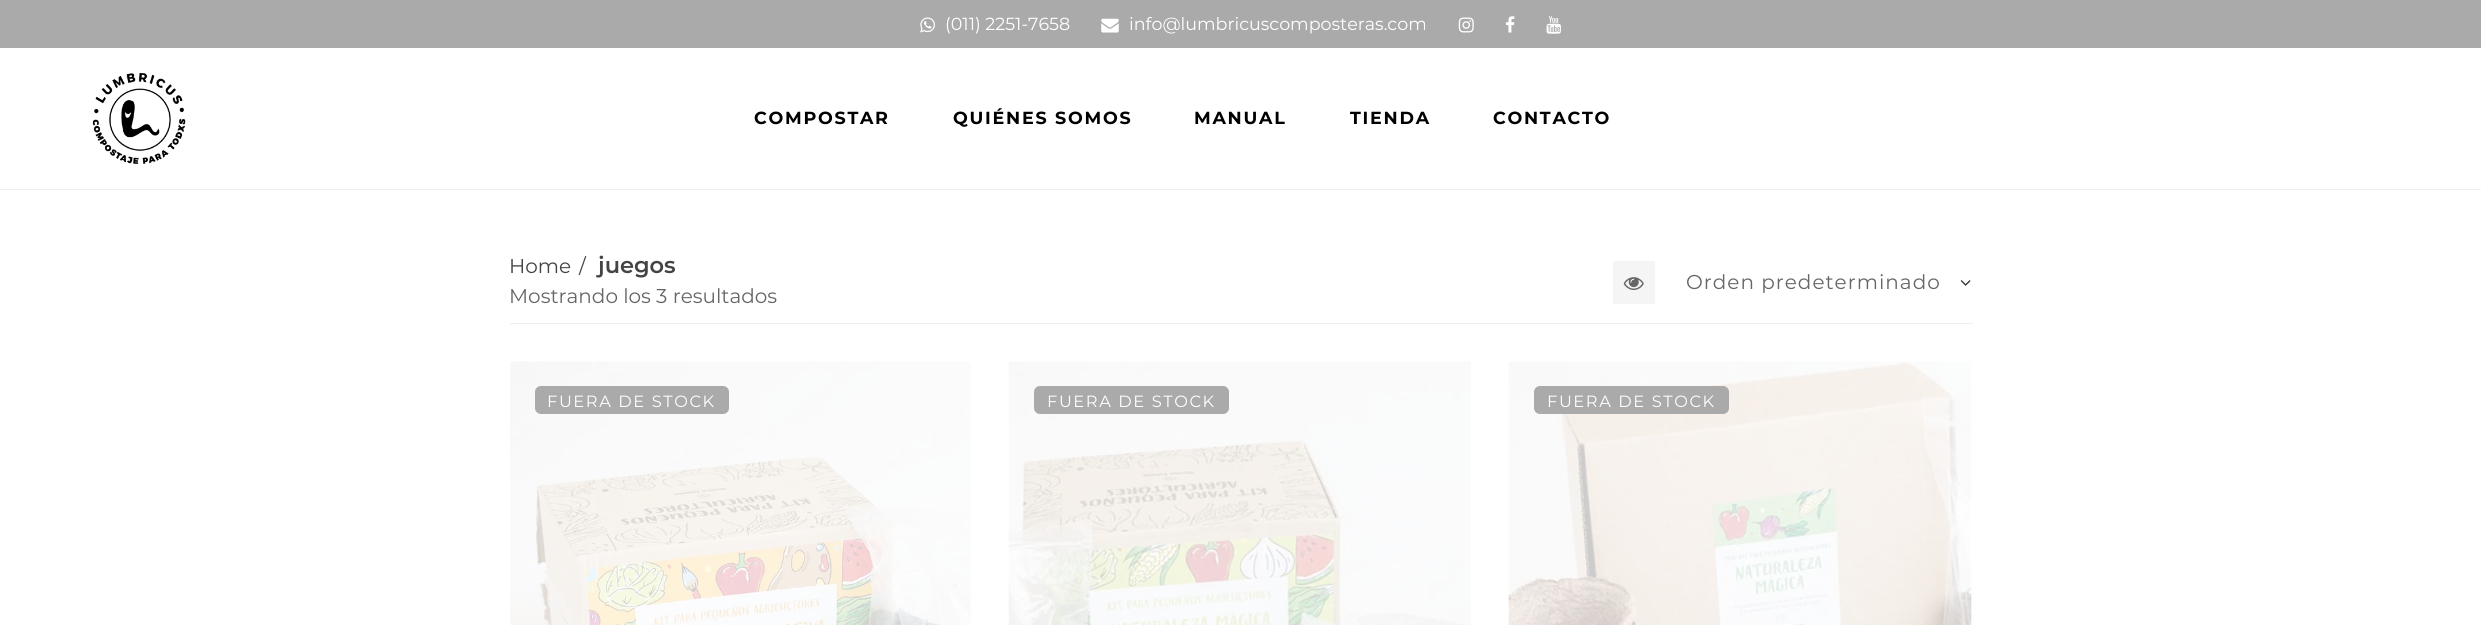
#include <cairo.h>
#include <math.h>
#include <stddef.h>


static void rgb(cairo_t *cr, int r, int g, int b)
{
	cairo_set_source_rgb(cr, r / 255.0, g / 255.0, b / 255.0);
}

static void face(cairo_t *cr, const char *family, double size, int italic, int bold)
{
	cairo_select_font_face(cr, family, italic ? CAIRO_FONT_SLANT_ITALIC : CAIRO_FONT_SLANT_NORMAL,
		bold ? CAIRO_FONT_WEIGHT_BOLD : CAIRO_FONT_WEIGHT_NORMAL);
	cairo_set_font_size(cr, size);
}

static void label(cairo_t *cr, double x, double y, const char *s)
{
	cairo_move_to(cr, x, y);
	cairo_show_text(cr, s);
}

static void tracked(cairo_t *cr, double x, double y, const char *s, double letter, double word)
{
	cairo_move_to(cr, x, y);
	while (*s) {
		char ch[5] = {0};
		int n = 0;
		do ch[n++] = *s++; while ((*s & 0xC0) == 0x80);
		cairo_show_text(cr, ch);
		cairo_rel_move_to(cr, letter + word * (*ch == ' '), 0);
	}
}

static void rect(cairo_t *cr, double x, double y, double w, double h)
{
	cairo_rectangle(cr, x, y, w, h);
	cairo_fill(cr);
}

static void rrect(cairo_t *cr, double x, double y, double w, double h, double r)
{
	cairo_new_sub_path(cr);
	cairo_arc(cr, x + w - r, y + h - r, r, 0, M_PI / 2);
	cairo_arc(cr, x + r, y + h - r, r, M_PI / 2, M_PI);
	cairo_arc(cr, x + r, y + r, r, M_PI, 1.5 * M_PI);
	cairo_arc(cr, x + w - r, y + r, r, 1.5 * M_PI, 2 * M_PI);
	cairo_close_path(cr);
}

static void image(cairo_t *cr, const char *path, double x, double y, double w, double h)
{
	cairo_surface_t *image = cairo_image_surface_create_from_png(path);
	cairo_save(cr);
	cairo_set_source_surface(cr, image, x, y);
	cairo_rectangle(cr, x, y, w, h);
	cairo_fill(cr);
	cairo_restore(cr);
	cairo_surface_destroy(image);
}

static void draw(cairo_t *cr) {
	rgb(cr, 255, 255, 255);
	cairo_paint(cr);
	rgb(cr, 170, 170, 170);
	rect(cr, 0, 0, 2481, 48);
	image(cr, "image0.png", 920, 17, 15, 16);
	face(cr, "Montserrat", 17.5, 0, 0);
	rgb(cr, 255, 255, 255);
	label(cr, 945, 30, "(011) 2251-7658");
	image(cr, "image1.png", 1101, 18, 18, 15);
	label(cr, 1129, 30, "info@lumbricuscomposteras.com");
	image(cr, "image2.png", 1458, 17, 16, 16);
	image(cr, "image3.png", 1505, 16, 10, 17);
	image(cr, "image4.png", 1546, 16, 15, 18);
	rgb(cr, 238, 238, 238);
	rect(cr, 0, 189, 2481, 1);
	image(cr, "image5.png", 92, 73, 94, 91);
	face(cr, "Montserrat", 17.5, 0, 1);
	rgb(cr, 0, 0, 0);
	tracked(cr, 754, 124, "COMPOSTAR", 1.75, 0);
	tracked(cr, 953, 124, "QUIÉNES SOMOS", 1.75, 0);
	tracked(cr, 1194, 124, "MANUAL", 1.75, 0);
	tracked(cr, 1350, 124, "TIENDA", 1.75, 0);
	tracked(cr, 1493, 124, "CONTACTO", 1.75, 0);
	rgb(cr, 238, 238, 238);
	rect(cr, 510, 323, 1463, 1);
	face(cr, "Montserrat", 20, 0, 0);
	rgb(cr, 68, 68, 68);
	label(cr, 509, 273, "Home");
	label(cr, 579, 273, "/");
	face(cr, "Montserrat SemiBold", 22.5, 0, 0);
	label(cr, 598, 273, "juegos");
	face(cr, "Montserrat", 20, 0, 0);
	rgb(cr, 102, 102, 102);
	label(cr, 509, 303, "Mostrando los 3 resultados");
	rgb(cr, 245, 245, 245);
	rect(cr, 1613, 261, 42, 43);
	image(cr, "image6.png", 1623, 277, 21, 13);
	rgb(cr, 102, 102, 102);
	tracked(cr, 1686, 289, "Orden predeterminado", 1, 0);
	image(cr, "image7.png", 1960, 280, 11, 6);
	image(cr, "image8.png", 510, 361, 461, 264);
	rgb(cr, 170, 170, 170);
	rrect(cr, 535, 386, 194, 28, 6);
	cairo_fill(cr);
	face(cr, "Montserrat", 16.25, 0, 0);
	rgb(cr, 255, 255, 255);
	tracked(cr, 547, 407, "FUERA DE STOCK", 1.6, 0);
	image(cr, "image9.png", 1008, 361, 463, 264);
	rgb(cr, 170, 170, 170);
	rrect(cr, 1034, 386, 195, 28, 6);
	cairo_fill(cr);
	rgb(cr, 255, 255, 255);
	tracked(cr, 1047, 407, "FUERA DE STOCK", 1.6, 0);
	image(cr, "image10.png", 1508, 361, 464, 264);
	rgb(cr, 170, 170, 170);
	rrect(cr, 1534, 386, 195, 28, 6);
	cairo_fill(cr);
	rgb(cr, 255, 255, 255);
	tracked(cr, 1547, 407, "FUERA DE STOCK", 1.6, 0);
}

int main(void) {
	cairo_surface_t *surface = cairo_image_surface_create(CAIRO_FORMAT_RGB24, 2481, 625);
	cairo_t *cr = cairo_create(surface);
	cairo_font_options_t *options = cairo_font_options_create();
	cairo_font_options_set_hint_metrics(options, CAIRO_HINT_METRICS_OFF);
	cairo_font_options_set_hint_style(options, CAIRO_HINT_STYLE_NONE);
	cairo_set_font_options(cr, options);
	cairo_set_miter_limit(cr, 4);
	draw(cr);
	cairo_surface_write_to_png(surface, "render.png");
	cairo_font_options_destroy(options);
	cairo_destroy(cr);
	cairo_surface_destroy(surface);
	return 0;
}
